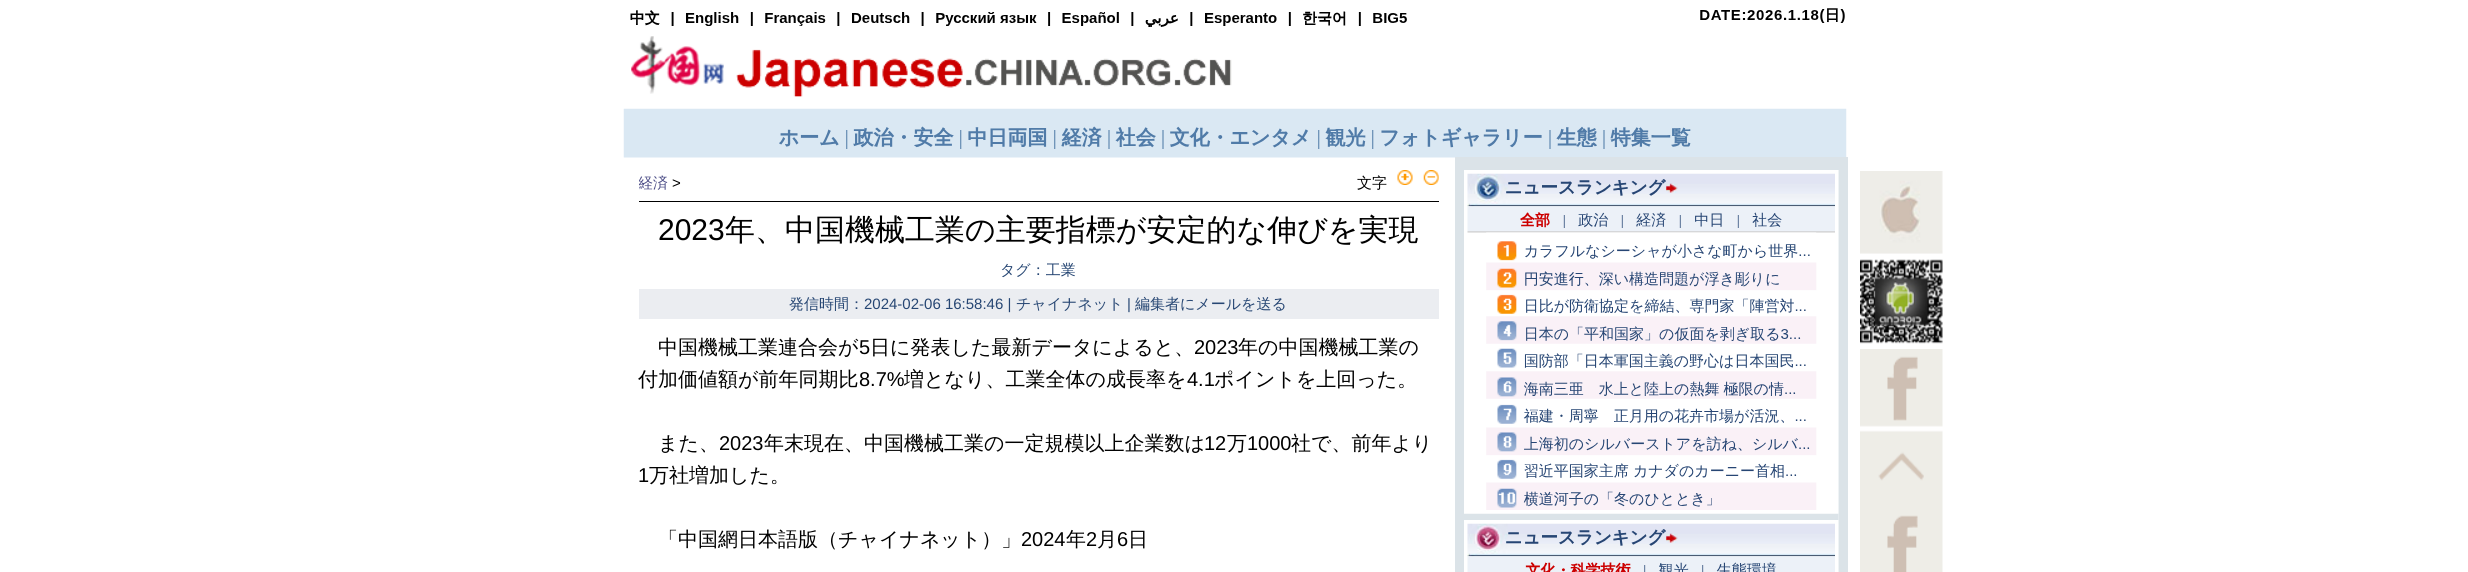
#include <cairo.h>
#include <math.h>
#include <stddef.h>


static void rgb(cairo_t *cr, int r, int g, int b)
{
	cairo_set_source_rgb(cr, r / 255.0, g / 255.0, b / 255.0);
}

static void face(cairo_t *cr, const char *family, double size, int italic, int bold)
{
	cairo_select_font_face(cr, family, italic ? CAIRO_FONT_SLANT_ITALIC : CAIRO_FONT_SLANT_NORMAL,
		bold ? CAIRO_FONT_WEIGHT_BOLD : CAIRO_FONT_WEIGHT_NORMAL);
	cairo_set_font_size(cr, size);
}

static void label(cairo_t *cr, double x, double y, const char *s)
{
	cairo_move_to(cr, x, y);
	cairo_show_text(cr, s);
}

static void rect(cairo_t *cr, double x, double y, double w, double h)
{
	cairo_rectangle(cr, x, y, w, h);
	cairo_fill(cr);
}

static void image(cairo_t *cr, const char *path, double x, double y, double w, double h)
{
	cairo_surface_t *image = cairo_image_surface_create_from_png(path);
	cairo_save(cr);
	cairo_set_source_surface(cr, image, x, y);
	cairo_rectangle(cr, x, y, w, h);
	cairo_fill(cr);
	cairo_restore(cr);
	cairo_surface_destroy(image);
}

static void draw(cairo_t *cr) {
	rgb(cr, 255, 255, 255);
	cairo_paint(cr);
	image(cr, "image0.png", 623, 8, 1224, 150);
	rgb(cr, 219, 227, 232);
	rect(cr, 1455, 157, 393, 415);
	rgb(cr, 0, 0, 0);
	rect(cr, 639, 201, 800, 1);
	cairo_save(cr);
	cairo_rectangle(cr, 639, 170, 800, 31);
	cairo_clip(cr);
	face(cr, "WenQuanYi Zen Hei Medium", 15, 0, 0);
	rgb(cr, 78, 79, 136);
	label(cr, 638, 188, "経済");
	cairo_restore(cr);
	face(cr, "Liberation Sans", 15, 0, 0);
	label(cr, 672, 188, ">");
	face(cr, "WenQuanYi Zen Hei Medium", 15, 0, 0);
	label(cr, 1357, 188, "文字");
	image(cr, "image1.png", 1397, 170, 16, 15);
	image(cr, "image2.png", 1423, 170, 16, 15);
	face(cr, "Liberation Sans", 30, 0, 0);
	label(cr, 658, 240, "2023");
	face(cr, "WenQuanYi Zen Hei Medium", 30, 0, 0);
	label(cr, 725, 240, "年、中国機械工業の主要指標が安定的な伸びを実現");
	face(cr, "WenQuanYi Zen Hei Medium", 15, 0, 0);
	rgb(cr, 38, 70, 115);
	label(cr, 1000, 275, "タグ：工業");
	rgb(cr, 235, 237, 241);
	rect(cr, 639, 289, 800, 30);
	rgb(cr, 38, 70, 115);
	label(cr, 789, 309, "発信時間：");
	face(cr, "Liberation Sans", 15, 0, 0);
	label(cr, 864, 309, "2024-02-06 16:58:46 |");
	face(cr, "WenQuanYi Zen Hei Medium", 15, 0, 0);
	label(cr, 1016, 309, "チャイナネット");
	face(cr, "Liberation Sans", 15, 0, 0);
	label(cr, 1127, 309, "|");
	face(cr, "WenQuanYi Zen Hei Medium", 15, 0, 0);
	label(cr, 1135, 309, "編集者にメールを送る");
	face(cr, "WenQuanYi Zen Hei Medium", 20, 0, 0);
	rgb(cr, 0, 0, 0);
	label(cr, 658, 354, "中国機械工業連合会が");
	face(cr, "Liberation Sans", 20, 0, 0);
	label(cr, 859, 354, "5");
	face(cr, "WenQuanYi Zen Hei Medium", 20, 0, 0);
	label(cr, 870, 354, "日に発表した最新データによると、");
	face(cr, "Liberation Sans", 20, 0, 0);
	label(cr, 1194, 354, "2023");
	face(cr, "WenQuanYi Zen Hei Medium", 20, 0, 0);
	label(cr, 1238, 354, "年の中国機械工業の");
	label(cr, 638, 386, "付加価値額が前年同期比");
	face(cr, "Liberation Sans", 20, 0, 0);
	label(cr, 859, 386, "8.7%");
	face(cr, "WenQuanYi Zen Hei Medium", 20, 0, 0);
	label(cr, 904, 386, "増となり、工業全体の成長率を");
	face(cr, "Liberation Sans", 20, 0, 0);
	label(cr, 1187, 386, "4.1");
	face(cr, "WenQuanYi Zen Hei Medium", 20, 0, 0);
	label(cr, 1214, 386, "ポイントを上回った。");
	label(cr, 658, 450, "また、");
	face(cr, "Liberation Sans", 20, 0, 0);
	label(cr, 719, 450, "2023");
	face(cr, "WenQuanYi Zen Hei Medium", 20, 0, 0);
	label(cr, 764, 450, "年末現在、中国機械工業の一定規模以上企業数は");
	face(cr, "Liberation Sans", 20, 0, 0);
	label(cr, 1204, 450, "12");
	face(cr, "WenQuanYi Zen Hei Medium", 20, 0, 0);
	label(cr, 1227, 450, "万");
	face(cr, "Liberation Sans", 20, 0, 0);
	label(cr, 1247, 450, "1000");
	face(cr, "WenQuanYi Zen Hei Medium", 20, 0, 0);
	label(cr, 1291, 450, "社で、前年より");
	face(cr, "Liberation Sans", 20, 0, 0);
	label(cr, 638, 482, "1");
	face(cr, "WenQuanYi Zen Hei Medium", 20, 0, 0);
	label(cr, 649, 482, "万社増加した。");
	label(cr, 658, 546, "「中国網日本語版（チャイナネット）」");
	face(cr, "Liberation Sans", 20, 0, 0);
	label(cr, 1021, 546, "2024");
	face(cr, "WenQuanYi Zen Hei Medium", 20, 0, 0);
	label(cr, 1066, 546, "年");
	face(cr, "Liberation Sans", 20, 0, 0);
	label(cr, 1086, 546, "2");
	face(cr, "WenQuanYi Zen Hei Medium", 20, 0, 0);
	label(cr, 1097, 546, "月");
	face(cr, "Liberation Sans", 20, 0, 0);
	label(cr, 1117, 546, "6");
	face(cr, "WenQuanYi Zen Hei Medium", 20, 0, 0);
	label(cr, 1128, 546, "日");
	image(cr, "image3.png", 1464, 170, 375, 402);
	image(cr, "image4.png", 1860, 171, 83, 83);
	image(cr, "image5.png", 1860, 259, 83, 85);
	image(cr, "image6.png", 1860, 349, 83, 223);
}

int main(void) {
	cairo_surface_t *surface = cairo_image_surface_create(CAIRO_FORMAT_RGB24, 2468, 572);
	cairo_t *cr = cairo_create(surface);
	cairo_font_options_t *options = cairo_font_options_create();
	cairo_font_options_set_hint_metrics(options, CAIRO_HINT_METRICS_OFF);
	cairo_font_options_set_hint_style(options, CAIRO_HINT_STYLE_NONE);
	cairo_set_font_options(cr, options);
	cairo_set_miter_limit(cr, 4);
	draw(cr);
	cairo_surface_write_to_png(surface, "render.png");
	cairo_font_options_destroy(options);
	cairo_destroy(cr);
	cairo_surface_destroy(surface);
	return 0;
}
